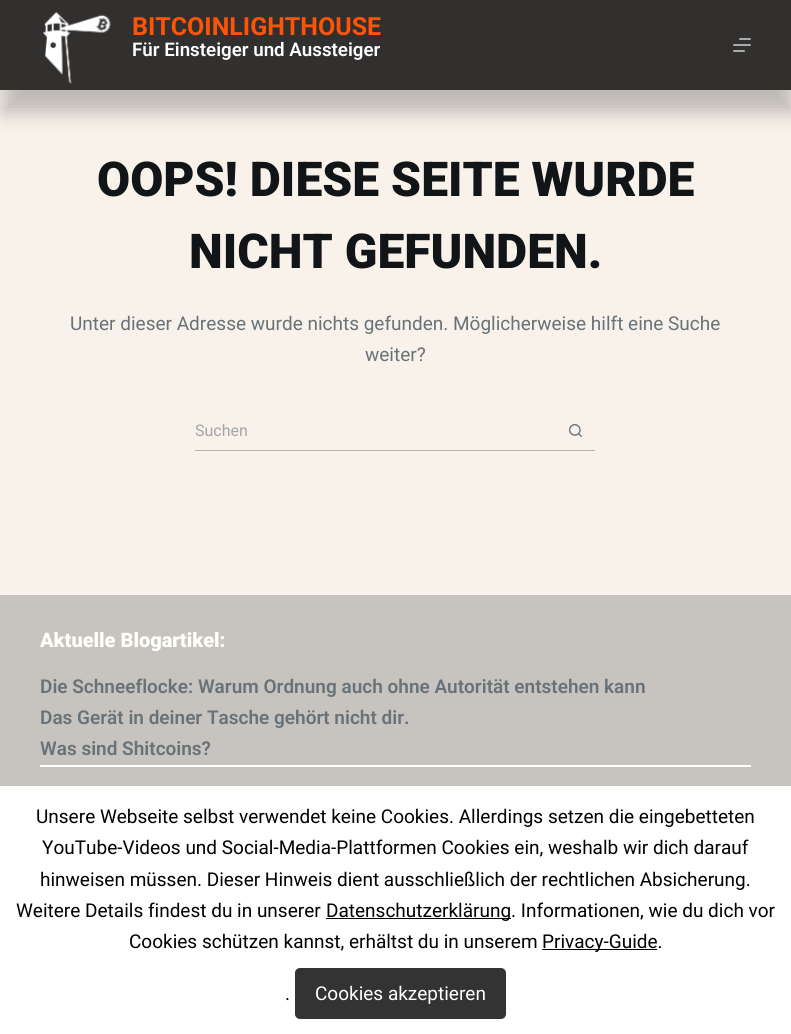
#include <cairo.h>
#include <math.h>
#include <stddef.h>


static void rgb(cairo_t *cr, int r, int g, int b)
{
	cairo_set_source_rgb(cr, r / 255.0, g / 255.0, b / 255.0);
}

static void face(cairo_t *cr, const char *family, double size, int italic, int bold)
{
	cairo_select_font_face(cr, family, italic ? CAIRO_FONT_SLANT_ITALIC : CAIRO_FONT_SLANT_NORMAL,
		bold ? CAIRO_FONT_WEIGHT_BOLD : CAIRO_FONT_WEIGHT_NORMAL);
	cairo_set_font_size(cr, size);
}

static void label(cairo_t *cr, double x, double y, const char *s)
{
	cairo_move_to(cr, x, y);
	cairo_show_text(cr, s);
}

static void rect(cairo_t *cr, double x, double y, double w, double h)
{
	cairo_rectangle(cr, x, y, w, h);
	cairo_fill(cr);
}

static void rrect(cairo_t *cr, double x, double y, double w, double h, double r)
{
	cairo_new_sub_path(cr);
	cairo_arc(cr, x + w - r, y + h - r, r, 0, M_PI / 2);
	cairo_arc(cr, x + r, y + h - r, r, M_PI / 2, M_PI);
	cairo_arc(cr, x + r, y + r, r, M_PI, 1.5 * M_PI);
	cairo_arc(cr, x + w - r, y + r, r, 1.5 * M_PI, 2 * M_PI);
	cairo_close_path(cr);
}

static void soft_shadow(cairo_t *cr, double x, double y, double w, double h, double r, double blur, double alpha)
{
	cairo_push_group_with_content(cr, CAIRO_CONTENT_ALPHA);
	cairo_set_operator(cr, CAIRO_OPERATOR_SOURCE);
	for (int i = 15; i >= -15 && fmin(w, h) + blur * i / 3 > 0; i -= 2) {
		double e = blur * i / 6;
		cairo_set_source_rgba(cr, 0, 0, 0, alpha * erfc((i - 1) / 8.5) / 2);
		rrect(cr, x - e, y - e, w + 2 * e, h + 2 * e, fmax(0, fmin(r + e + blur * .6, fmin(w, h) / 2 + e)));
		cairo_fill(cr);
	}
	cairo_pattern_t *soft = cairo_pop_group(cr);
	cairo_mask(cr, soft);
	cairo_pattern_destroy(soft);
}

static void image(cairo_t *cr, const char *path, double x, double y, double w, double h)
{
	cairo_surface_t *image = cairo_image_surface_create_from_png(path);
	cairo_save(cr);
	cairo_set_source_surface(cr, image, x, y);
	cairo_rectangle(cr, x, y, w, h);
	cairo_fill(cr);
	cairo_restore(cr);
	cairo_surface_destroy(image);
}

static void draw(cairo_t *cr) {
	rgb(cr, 248, 242, 235);
	cairo_paint(cr);
	rgb(cr, 5, 5, 5);
	soft_shadow(cr, 3, 23, 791, 90, 0, 10, 0.24);
	rgb(cr, 50, 48, 47);
	rect(cr, 0, 0, 791, 90);
	image(cr, "image0.png", 43, 12, 68, 72);
	face(cr, "Roboto", 25, 0, 1);
	rgb(cr, 255, 84, 5);
	label(cr, 132, 35, "BITCOINLIGHTHOUSE");
	face(cr, "Roboto SemiBold", 18.75, 0, 0);
	rgb(cr, 255, 255, 255);
	label(cr, 132, 56, "Für Einsteiger und Aussteiger");
	rgb(cr, 170, 170, 170);
	rrect(cr, 739, 38, 12, 2, 1);
	cairo_fill(cr);
	rrect(cr, 733, 44, 18, 2, 1);
	cairo_fill(cr);
	rrect(cr, 733, 50, 12, 2, 1);
	cairo_fill(cr);
	face(cr, "Roboto Black", 48, 0, 0);
	rgb(cr, 17, 21, 24);
	label(cr, 97, 196, "OOPS! DIESE SEITE WURDE");
	label(cr, 189, 268, "NICHT GEFUNDEN.");
	face(cr, "Roboto", 19, 0, 0);
	rgb(cr, 104, 114, 121);
	label(cr, 70, 330, "Unter dieser Adresse wurde nichts gefunden. Möglicherweise hilft eine Suche");
	label(cr, 365, 361, "weiter?");
	rgb(cr, 178, 178, 178);
	rect(cr, 195, 450, 400, 1);
	face(cr, "Roboto", 16, 0, 0);
	rgb(cr, 162, 165, 167);
	label(cr, 195, 436, "Suchen");
	image(cr, "image1.png", 569, 424, 13, 13);
	rgb(cr, 199, 195, 190);
	rect(cr, 0, 595, 791, 191);
	face(cr, "Roboto Black", 20, 0, 0);
	rgb(cr, 255, 255, 255);
	label(cr, 40, 647, "Aktuelle Blogartikel:");
	face(cr, "Roboto SemiBold", 19, 0, 0);
	rgb(cr, 104, 114, 121);
	label(cr, 40, 693, "Die Schneeflocke: Warum Ordnung auch ohne Autorität entstehen kann");
	label(cr, 40, 724, "Das Gerät in deiner Tasche gehört nicht dir.");
	label(cr, 40, 755, "Was sind Shitcoins?");
	rgb(cr, 255, 255, 255);
	rect(cr, 40, 765, 711, 2);
	rect(cr, 0, 786, 791, 248);
	face(cr, "Roboto", 19, 0, 0);
	rgb(cr, 0, 0, 0);
	label(cr, 36, 823, "Unsere Webseite selbst verwendet keine Cookies. Allerdings setzen die eingebetteten");
	label(cr, 42, 854, "YouTube-Videos und Social-Media-Plattformen Cookies ein, weshalb wir dich darauf");
	label(cr, 40, 886, "hinweisen müssen. Dieser Hinweis dient ausschließlich der rechtlichen Absicherung.");
	label(cr, 16, 917, "Weitere Details findest du in unserer");
	rect(cr, 326, 918, 185, 1);
	label(cr, 326, 917, "Datenschutzerklärung. Informationen, wie du dich vor");
	label(cr, 129, 948, "Cookies schützen kannst, erhältst du in unserem");
	rect(cr, 542, 949, 115, 1);
	label(cr, 542, 948, "Privacy-Guide.");
	label(cr, 285, 1000, ".");
	rgb(cr, 51, 51, 51);
	rrect(cr, 295, 968, 211, 51, 5);
	cairo_fill(cr);
	rgb(cr, 255, 255, 255);
	label(cr, 315, 1000, "Cookies akzeptieren");
}

int main(void) {
	cairo_surface_t *surface = cairo_image_surface_create(CAIRO_FORMAT_RGB24, 791, 1034);
	cairo_t *cr = cairo_create(surface);
	cairo_font_options_t *options = cairo_font_options_create();
	cairo_font_options_set_hint_metrics(options, CAIRO_HINT_METRICS_OFF);
	cairo_font_options_set_hint_style(options, CAIRO_HINT_STYLE_NONE);
	cairo_set_font_options(cr, options);
	cairo_set_miter_limit(cr, 4);
	draw(cr);
	cairo_surface_write_to_png(surface, "render.png");
	cairo_font_options_destroy(options);
	cairo_destroy(cr);
	cairo_surface_destroy(surface);
	return 0;
}
